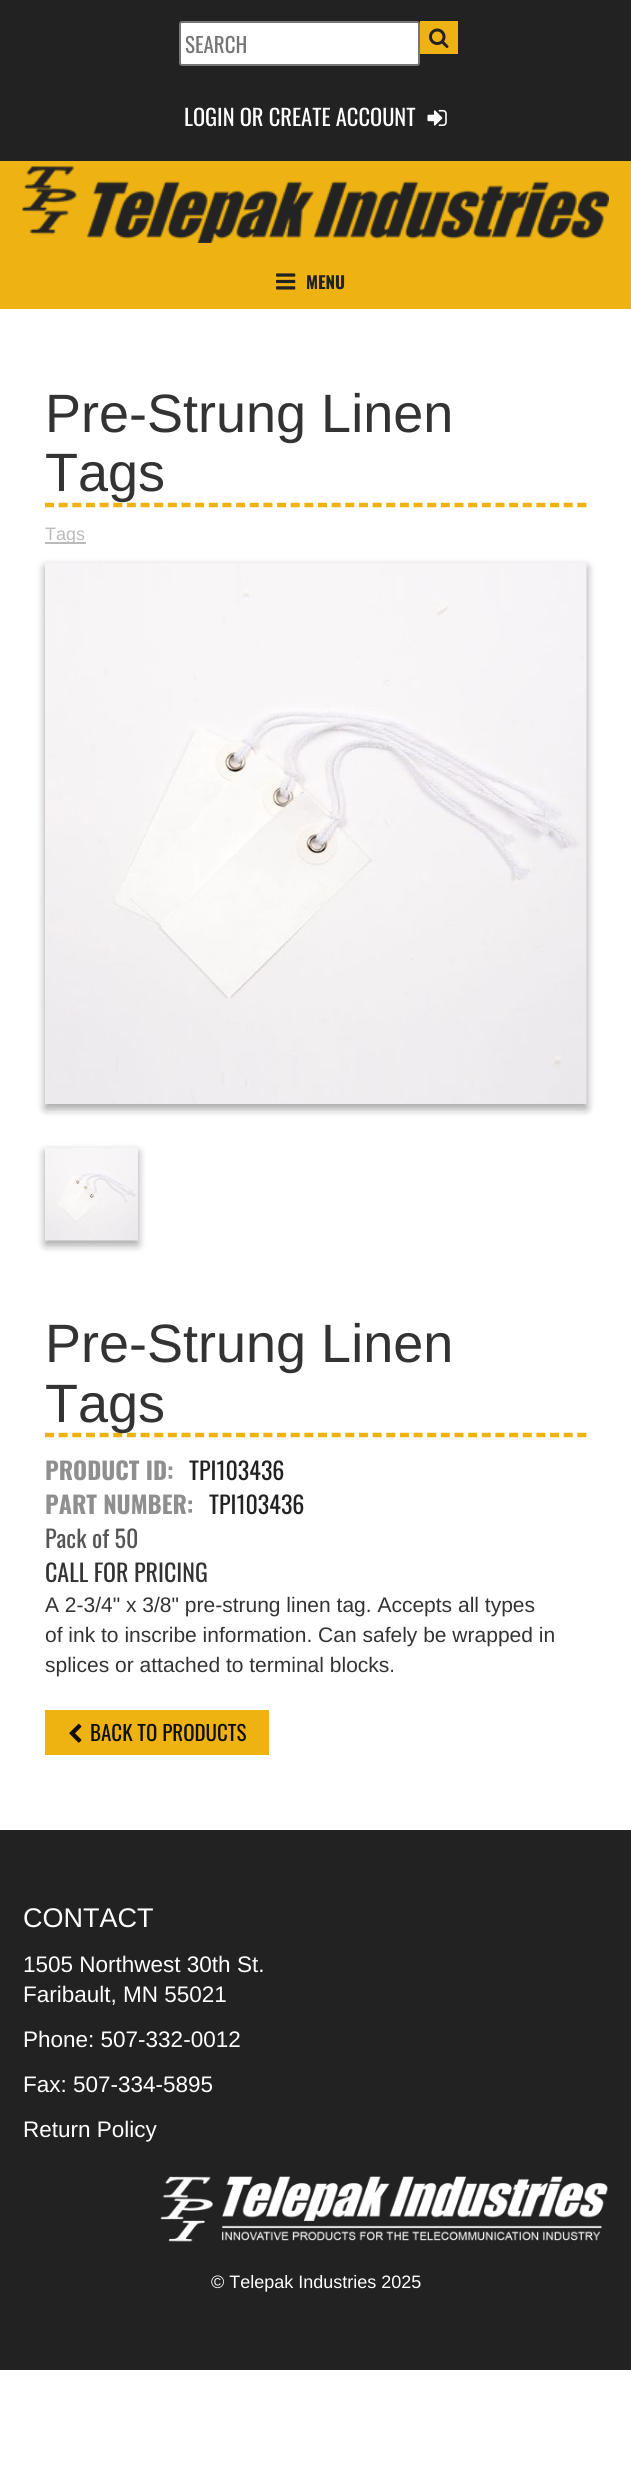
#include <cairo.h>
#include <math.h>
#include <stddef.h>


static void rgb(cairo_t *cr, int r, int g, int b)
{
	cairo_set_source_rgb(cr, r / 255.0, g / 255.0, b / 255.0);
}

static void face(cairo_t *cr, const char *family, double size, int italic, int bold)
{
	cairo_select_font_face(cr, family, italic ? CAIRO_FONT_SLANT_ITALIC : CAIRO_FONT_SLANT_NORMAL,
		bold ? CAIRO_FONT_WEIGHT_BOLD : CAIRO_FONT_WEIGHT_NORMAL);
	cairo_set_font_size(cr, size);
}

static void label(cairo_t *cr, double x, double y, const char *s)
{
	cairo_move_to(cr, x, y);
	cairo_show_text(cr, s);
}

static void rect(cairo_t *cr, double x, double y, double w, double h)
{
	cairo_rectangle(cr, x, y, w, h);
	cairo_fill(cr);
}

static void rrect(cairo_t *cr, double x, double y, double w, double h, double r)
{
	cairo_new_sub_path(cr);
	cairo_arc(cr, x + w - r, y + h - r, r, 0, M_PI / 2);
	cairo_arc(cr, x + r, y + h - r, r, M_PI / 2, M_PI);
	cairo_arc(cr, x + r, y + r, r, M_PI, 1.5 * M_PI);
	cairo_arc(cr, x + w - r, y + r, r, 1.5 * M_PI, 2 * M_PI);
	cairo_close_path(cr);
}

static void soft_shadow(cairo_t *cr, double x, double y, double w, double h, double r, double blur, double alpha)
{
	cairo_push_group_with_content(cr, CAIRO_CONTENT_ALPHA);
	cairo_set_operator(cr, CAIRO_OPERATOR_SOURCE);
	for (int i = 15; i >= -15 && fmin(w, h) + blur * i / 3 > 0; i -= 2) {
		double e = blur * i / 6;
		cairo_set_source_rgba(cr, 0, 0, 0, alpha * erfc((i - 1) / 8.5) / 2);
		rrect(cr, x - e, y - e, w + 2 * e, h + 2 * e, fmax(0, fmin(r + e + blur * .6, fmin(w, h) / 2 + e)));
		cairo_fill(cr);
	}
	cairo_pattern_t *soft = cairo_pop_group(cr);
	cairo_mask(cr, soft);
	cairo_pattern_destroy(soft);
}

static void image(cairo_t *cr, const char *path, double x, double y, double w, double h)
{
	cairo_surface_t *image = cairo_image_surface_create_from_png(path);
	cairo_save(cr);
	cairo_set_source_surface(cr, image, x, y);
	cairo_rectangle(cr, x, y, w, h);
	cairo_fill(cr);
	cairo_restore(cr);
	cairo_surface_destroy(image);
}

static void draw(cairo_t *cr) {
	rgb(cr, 255, 255, 255);
	cairo_paint(cr);
	rgb(cr, 34, 34, 34);
	rect(cr, 0, 0, 631, 161);
	rgb(cr, 255, 255, 255);
	rrect(cr, 180, 22, 239, 43, 2);
	cairo_fill_preserve(cr);
	rgb(cr, 118, 118, 118);
	cairo_stroke(cr);
	face(cr, "Oswald", 21, 0, 0);
	rgb(cr, 117, 117, 117);
	label(cr, 185, 53, "SEARCH");
	rgb(cr, 238, 178, 18);
	rect(cr, 420, 21, 38, 33);
	image(cr, "image0.png", 429, 28, 20, 20);
	face(cr, "Oswald", 22.5, 0, 0);
	rgb(cr, 255, 255, 255);
	label(cr, 184, 126, "LOGIN OR CREATE ACCOUNT");
	image(cr, "image1.png", 427, 109, 20, 17);
	rgb(cr, 238, 178, 18);
	rect(cr, 0, 161, 631, 148);
	image(cr, "image2.png", 22, 166, 587, 77);
	image(cr, "image3.png", 276, 273, 20, 17);
	face(cr, "Oswald", 17, 0, 1);
	rgb(cr, 34, 34, 34);
	label(cr, 306, 289, "MENU");
	cairo_new_path(cr);
	cairo_move_to(cr, 45, 505);
	cairo_line_to(cr, 586.5, 505);
	rgb(cr, 238, 178, 18);
	cairo_set_line_width(cr, 4.5);
	cairo_set_dash(cr, (double[]){9, 4.65}, 2, 0);
	cairo_stroke(cr);
	face(cr, "Liberation Sans", 54, 0, 0);
	rgb(cr, 51, 51, 51);
	label(cr, 45, 432, "Pre-Strung Linen");
	label(cr, 45, 491, "Tags");
	rgb(cr, 187, 187, 187);
	rect(cr, 45, 542, 41, 2);
	face(cr, "Liberation Sans", 18, 0, 0);
	label(cr, 45, 540, "Tags");
	rgb(cr, 0, 0, 0);
	soft_shadow(cr, 45, 567, 542, 542, 0, 4.5, 0.23);
	soft_shadow(cr, 45, 567, 542, 542, 0, 4.5, 0.16);
	image(cr, "image4.png", 45, 563, 542, 541);
	soft_shadow(cr, 45, 1152, 93, 93, 0, 4.5, 0.23);
	soft_shadow(cr, 45, 1152, 93, 93, 0, 4.5, 0.16);
	image(cr, "image5.png", 45, 1148, 93, 93);
	cairo_new_path(cr);
	cairo_move_to(cr, 45, 1435);
	cairo_line_to(cr, 586.5, 1435);
	rgb(cr, 238, 178, 18);
	cairo_stroke(cr);
	face(cr, "Liberation Sans", 54, 0, 0);
	rgb(cr, 51, 51, 51);
	label(cr, 45, 1362, "Pre-Strung Linen");
	label(cr, 45, 1422, "Tags");
	face(cr, "Oswald", 24, 0, 1);
	rgb(cr, 143, 143, 143);
	label(cr, 45, 1480, "PRODUCT ID:");
	face(cr, "Oswald", 24, 0, 0);
	rgb(cr, 34, 34, 34);
	label(cr, 189, 1480, "TPI103436");
	face(cr, "Oswald", 24, 0, 1);
	rgb(cr, 143, 143, 143);
	label(cr, 45, 1514, "PART NUMBER:");
	face(cr, "Oswald", 24, 0, 0);
	rgb(cr, 34, 34, 34);
	label(cr, 209, 1514, "TPI103436");
	rgb(cr, 85, 85, 85);
	label(cr, 45, 1548, "Pack of 50");
	rgb(cr, 51, 51, 51);
	label(cr, 45, 1582, "CALL FOR PRICING");
	face(cr, "Liberation Sans", 21, 0, 0);
	label(cr, 45, 1612, "A 2-3/4\" x 3/8\" pre-strung linen tag. Accepts all types");
	label(cr, 45, 1642, "of ink to inscribe information. Can safely be wrapped in");
	label(cr, 45, 1672, "splices or attached to terminal blocks.");
	rgb(cr, 238, 178, 17);
	rect(cr, 45, 1710, 224, 45);
	image(cr, "image6.png", 69, 1723, 13, 20);
	face(cr, "Oswald", 21, 0, 0);
	rgb(cr, 15, 15, 15);
	label(cr, 90, 1741, "BACK TO PRODUCTS");
	rgb(cr, 34, 34, 34);
	rect(cr, 0, 1830, 631, 540);
	face(cr, "Liberation Sans", 27, 0, 0);
	rgb(cr, 255, 255, 255);
	label(cr, 23, 1927, "CONTACT");
	face(cr, "Liberation Sans", 22.5, 0, 0);
	label(cr, 23, 1972, "1505 Northwest 30th St.");
	label(cr, 23, 2002, "Faribault, MN 55021");
	label(cr, 23, 2047, "Phone: 507-332-0012");
	label(cr, 23, 2092, "Fax: 507-334-5895");
	label(cr, 23, 2137, "Return Policy");
	image(cr, "image7.png", 160, 2176, 448, 66);
	face(cr, "Liberation Sans", 18, 0, 0);
	label(cr, 211, 2288, "© Telepak Industries 2025");
}

int main(void) {
	cairo_surface_t *surface = cairo_image_surface_create(CAIRO_FORMAT_RGB24, 631, 2487);
	cairo_t *cr = cairo_create(surface);
	cairo_font_options_t *options = cairo_font_options_create();
	cairo_font_options_set_hint_metrics(options, CAIRO_HINT_METRICS_OFF);
	cairo_font_options_set_hint_style(options, CAIRO_HINT_STYLE_NONE);
	cairo_set_font_options(cr, options);
	cairo_set_miter_limit(cr, 4);
	draw(cr);
	cairo_surface_write_to_png(surface, "render.png");
	cairo_font_options_destroy(options);
	cairo_destroy(cr);
	cairo_surface_destroy(surface);
	return 0;
}
